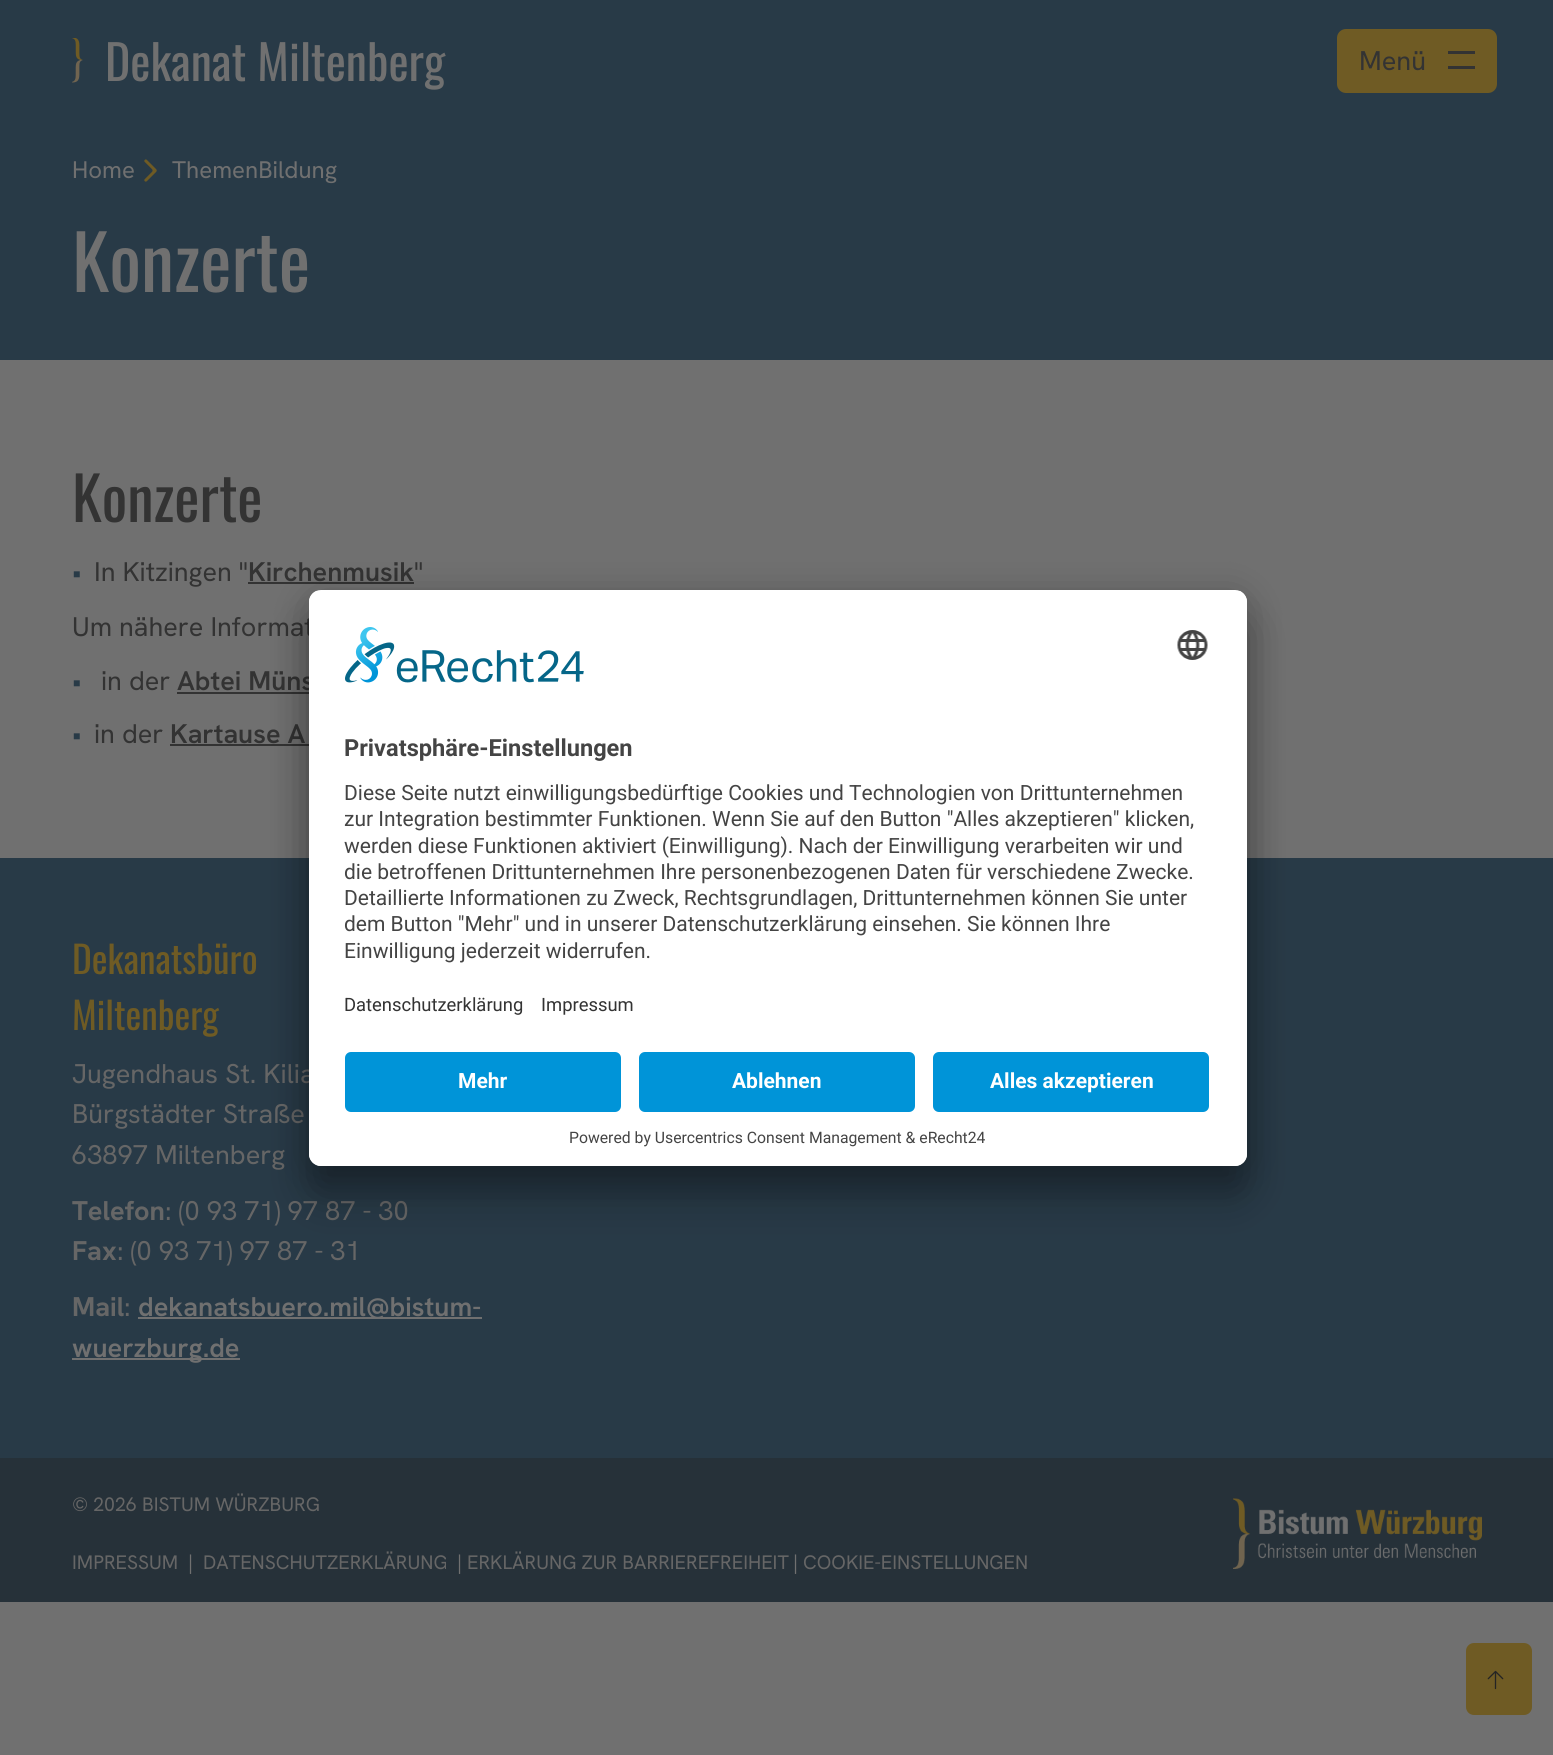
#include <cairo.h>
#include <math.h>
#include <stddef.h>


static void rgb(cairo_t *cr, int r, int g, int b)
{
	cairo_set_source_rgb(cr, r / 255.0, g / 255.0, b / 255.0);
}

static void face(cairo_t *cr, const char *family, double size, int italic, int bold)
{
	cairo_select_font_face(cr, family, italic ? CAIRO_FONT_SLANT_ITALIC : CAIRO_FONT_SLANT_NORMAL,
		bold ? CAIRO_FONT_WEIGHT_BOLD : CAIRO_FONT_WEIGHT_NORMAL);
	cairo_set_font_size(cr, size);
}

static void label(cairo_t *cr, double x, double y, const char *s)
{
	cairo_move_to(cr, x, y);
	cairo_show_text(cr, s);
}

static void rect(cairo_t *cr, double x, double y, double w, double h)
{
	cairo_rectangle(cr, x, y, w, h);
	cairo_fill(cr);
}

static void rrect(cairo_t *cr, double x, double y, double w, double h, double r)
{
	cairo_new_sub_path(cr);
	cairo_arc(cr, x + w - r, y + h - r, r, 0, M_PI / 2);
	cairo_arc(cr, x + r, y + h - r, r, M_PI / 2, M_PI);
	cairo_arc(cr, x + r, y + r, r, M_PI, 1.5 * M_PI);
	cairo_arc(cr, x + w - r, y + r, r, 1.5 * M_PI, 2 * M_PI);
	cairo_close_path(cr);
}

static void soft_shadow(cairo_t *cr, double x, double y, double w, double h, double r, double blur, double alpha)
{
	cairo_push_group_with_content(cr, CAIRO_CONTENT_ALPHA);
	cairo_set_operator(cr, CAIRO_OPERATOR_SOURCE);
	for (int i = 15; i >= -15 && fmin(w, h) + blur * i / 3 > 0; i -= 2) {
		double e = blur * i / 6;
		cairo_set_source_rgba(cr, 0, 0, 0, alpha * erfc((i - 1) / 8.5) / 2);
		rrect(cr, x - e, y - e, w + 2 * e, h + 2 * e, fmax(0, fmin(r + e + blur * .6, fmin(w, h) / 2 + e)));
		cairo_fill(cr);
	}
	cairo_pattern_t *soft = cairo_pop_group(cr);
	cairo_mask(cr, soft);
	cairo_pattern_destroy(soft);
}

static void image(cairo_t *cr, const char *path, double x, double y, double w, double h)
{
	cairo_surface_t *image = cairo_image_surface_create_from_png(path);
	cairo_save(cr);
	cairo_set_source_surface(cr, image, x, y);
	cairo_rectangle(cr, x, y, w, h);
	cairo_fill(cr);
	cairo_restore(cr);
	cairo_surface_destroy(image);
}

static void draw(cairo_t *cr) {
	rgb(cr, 112, 112, 112);
	cairo_paint(cr);
	rgb(cr, 40, 58, 71);
	rect(cr, 0, 0, 1553, 360);
	image(cr, "image0.png", 72, 38, 11, 45);
	face(cr, "Oswald", 48, 0, 0);
	rgb(cr, 112, 112, 112);
	label(cr, 105, 81, "Dekanat Miltenberg");
	rgb(cr, 111, 91, 36);
	rrect(cr, 1337, 29, 160, 64, 9);
	cairo_fill(cr);
	face(cr, "Hanken Grotesk", 27.1, 0, 0);
	rgb(cr, 51, 51, 51);
	label(cr, 1359, 70, "Menü");
	rect(cr, 1448, 51, 27, 3);
	rect(cr, 1448, 66, 27, 3);
	face(cr, "Hanken Grotesk", 24, 0, 0);
	rgb(cr, 112, 112, 112);
	label(cr, 72, 178, "Home");
	image(cr, "image1.png", 144, 159, 13, 23);
	label(cr, 172, 178, "ThemenBildung");
	face(cr, "Oswald", 75, 0, 0);
	label(cr, 72, 292, "Konzerte");
	rgb(cr, 111, 91, 36);
	rrect(cr, 1466, 1643, 66, 72, 8);
	cairo_fill(cr);
	image(cr, "image2.png", 1487, 1670, 17, 20);
	face(cr, "Oswald", 60, 0, 0);
	rgb(cr, 51, 51, 51);
	label(cr, 72, 522, "Konzerte");
	face(cr, "Hanken Grotesk", 27, 0, 0);
	label(cr, 94, 581, "In Kitzingen \"");
	face(cr, "Hanken Grotesk SemiBold", 27, 0, 0);
	label(cr, 248, 581, "Kirchenmusik");
	rect(cr, 248, 582, 166, 2);
	face(cr, "Hanken Grotesk", 27, 0, 0);
	label(cr, 414, 581, "\"");
	rgb(cr, 40, 58, 71);
	label(cr, 72, 581, "•");
	rgb(cr, 51, 51, 51);
	label(cr, 72, 636, "Um nähere Informat");
	rgb(cr, 40, 58, 71);
	label(cr, 72, 690, "•");
	rgb(cr, 51, 51, 51);
	label(cr, 101, 690, "in der");
	face(cr, "Hanken Grotesk SemiBold", 27, 0, 0);
	label(cr, 177, 690, "Abtei Müns");
	rect(cr, 177, 692, 132, 2);
	face(cr, "Hanken Grotesk", 27, 0, 0);
	rgb(cr, 40, 58, 71);
	label(cr, 72, 743, "•");
	rgb(cr, 51, 51, 51);
	label(cr, 94, 743, "in der");
	face(cr, "Hanken Grotesk SemiBold", 27, 0, 0);
	label(cr, 170, 743, "Kartause A");
	rect(cr, 170, 744, 139, 2);
	rgb(cr, 40, 58, 71);
	rect(cr, 0, 858, 1553, 600);
	face(cr, "Oswald", 37.5, 0, 0);
	rgb(cr, 111, 91, 36);
	label(cr, 72, 974, "Dekanatsbüro");
	label(cr, 72, 1030, "Miltenberg");
	face(cr, "Hanken Grotesk", 27.1, 0, 0);
	rgb(cr, 102, 102, 102);
	label(cr, 72, 1083, "Jugendhaus St. Kilia");
	label(cr, 72, 1123, "Bürgstädter Straße");
	label(cr, 72, 1164, "63897 Miltenberg");
	face(cr, "Hanken Grotesk", 27.1, 0, 1);
	label(cr, 72, 1220, "Telefon");
	face(cr, "Hanken Grotesk", 27.1, 0, 0);
	label(cr, 165, 1220, ": (0 93 71) 97 87 - 30");
	face(cr, "Hanken Grotesk", 27.1, 0, 1);
	label(cr, 72, 1260, "Fax");
	face(cr, "Hanken Grotesk", 27.1, 0, 0);
	label(cr, 117, 1260, ": (0 93 71) 97 87 - 31");
	face(cr, "Hanken Grotesk", 27.1, 0, 1);
	label(cr, 72, 1316, "Mail");
	face(cr, "Hanken Grotesk", 27.1, 0, 0);
	label(cr, 124, 1316, ":");
	rgb(cr, 112, 112, 112);
	rect(cr, 138, 1317, 344, 2);
	face(cr, "Hanken Grotesk SemiBold", 27.1, 0, 0);
	label(cr, 138, 1316, "dekanatsbuero.mil@bistum-");
	rect(cr, 72, 1358, 168, 2);
	label(cr, 72, 1357, "wuerzburg.de");
	rgb(cr, 38, 49, 57);
	rect(cr, 0, 1458, 1553, 144);
	face(cr, "Hanken Grotesk", 19.5, 0, 0);
	rgb(cr, 102, 102, 102);
	label(cr, 72, 1511, "© 2026 BISTUM WÜRZBURG");
	label(cr, 72, 1569, "IMPRESSUM");
	rgb(cr, 112, 112, 112);
	label(cr, 188, 1569, "|");
	rgb(cr, 102, 102, 102);
	label(cr, 203, 1569, "DATENSCHUTZERKLÄRUNG");
	rgb(cr, 112, 112, 112);
	label(cr, 457, 1569, "|");
	rgb(cr, 102, 102, 102);
	label(cr, 467, 1569, "ERKLÄRUNG ZUR BARRIEREFREIHEIT");
	rgb(cr, 112, 112, 112);
	label(cr, 793, 1569, "|");
	rgb(cr, 102, 102, 102);
	label(cr, 803, 1569, "COOKIE-EINSTELLUNGEN");
	image(cr, "image3.png", 1233, 1498, 249, 71);
	rgb(cr, 0, 0, 0);
	soft_shadow(cr, 309, 620, 938, 576, 12, 21, 0.3);
	soft_shadow(cr, 309, 597, 938, 576, 12, 19.5, 0.22);
	rgb(cr, 255, 255, 255);
	rrect(cr, 309, 590, 938, 576, 12);
	cairo_fill(cr);
	cairo_save(cr);
	rrect(cr, 309, 590, 938, 576, 12);
	cairo_clip(cr);
	cairo_new_path(cr);
	cairo_move_to(cr, 321, 590);
	cairo_line_to(cr, 1235, 590);
	cairo_curve_to(cr, 1241.5, 590, 1247, 595.5, 1247, 602);
	cairo_line_to(cr, 1247, 1040);
	cairo_line_to(cr, 309, 1040);
	cairo_line_to(cr, 309, 602);
	cairo_curve_to(cr, 309, 595.5, 314.5, 590, 321, 590);
	cairo_close_path(cr);
	cairo_clip(cr);
	rect(cr, 309, 591, 938, 449);
	cairo_restore(cr);
	image(cr, "image4.png", 345, 627, 239, 56);
	image(cr, "image5.png", 1177, 630, 31, 30);
	face(cr, "Roboto", 23.6, 0, 1);
	rgb(cr, 68, 68, 68);
	label(cr, 344, 756, "Privatsphäre-Einstellungen");
	face(cr, "Roboto", 21, 0, 0);
	label(cr, 344, 800, "Diese Seite nutzt einwilligungsbedürftige Cookies und Technologien von Drittunternehmen");
	label(cr, 344, 826, "zur Integration bestimmter Funktionen. Wenn Sie auf den Button \"Alles akzeptieren\" klicken,");
	label(cr, 344, 853, "werden diese Funktionen aktiviert (Einwilligung). Nach der Einwilligung verarbeiten wir und");
	label(cr, 344, 879, "die betroffenen Drittunternehmen Ihre personenbezogenen Daten für verschiedene Zwecke.");
	label(cr, 344, 905, "Detaillierte Informationen zu Zweck, Rechtsgrundlagen, Drittunternehmen können Sie unter");
	label(cr, 344, 931, "dem Button \"Mehr\" und in unserer Datenschutzerklärung einsehen. Sie können Ihre");
	label(cr, 344, 958, "Einwilligung jederzeit widerrufen.");
	face(cr, "Roboto", 18.4, 0, 0);
	rgb(cr, 51, 51, 51);
	label(cr, 344, 1011, "Datenschutzerklärung");
	label(cr, 541, 1011, "Impressum");
	rgb(cr, 255, 255, 255);
	cairo_new_path(cr);
	cairo_move_to(cr, 309, 1040);
	cairo_line_to(cr, 1247, 1040);
	cairo_line_to(cr, 1247, 1154);
	cairo_curve_to(cr, 1247, 1160.5, 1241.5, 1166, 1235, 1166);
	cairo_line_to(cr, 321, 1166);
	cairo_curve_to(cr, 314.5, 1166, 309, 1160.5, 309, 1154);
	cairo_close_path(cr);
	cairo_fill(cr);
	rgb(cr, 0, 148, 216);
	rrect(cr, 345, 1052, 276, 60, 6);
	cairo_fill(cr);
	face(cr, "Roboto", 21, 0, 1);
	rgb(cr, 255, 255, 255);
	label(cr, 458, 1088, "Mehr");
	rgb(cr, 0, 148, 216);
	rrect(cr, 639, 1052, 276, 60, 6);
	cairo_fill(cr);
	rgb(cr, 255, 255, 255);
	label(cr, 732, 1088, "Ablehnen");
	rgb(cr, 0, 148, 216);
	rrect(cr, 933, 1052, 276, 60, 6);
	cairo_fill(cr);
	rgb(cr, 255, 255, 255);
	label(cr, 990, 1088, "Alles akzeptieren");
	face(cr, "Roboto", 15.75, 0, 0);
	rgb(cr, 68, 68, 68);
	label(cr, 569, 1143, "Powered by Usercentrics Consent Management & eRecht24");
}

int main(void) {
	cairo_surface_t *surface = cairo_image_surface_create(CAIRO_FORMAT_RGB24, 1553, 1755);
	cairo_t *cr = cairo_create(surface);
	cairo_font_options_t *options = cairo_font_options_create();
	cairo_font_options_set_hint_metrics(options, CAIRO_HINT_METRICS_OFF);
	cairo_font_options_set_hint_style(options, CAIRO_HINT_STYLE_NONE);
	cairo_set_font_options(cr, options);
	cairo_set_miter_limit(cr, 4);
	draw(cr);
	cairo_surface_write_to_png(surface, "render.png");
	cairo_font_options_destroy(options);
	cairo_destroy(cr);
	cairo_surface_destroy(surface);
	return 0;
}
